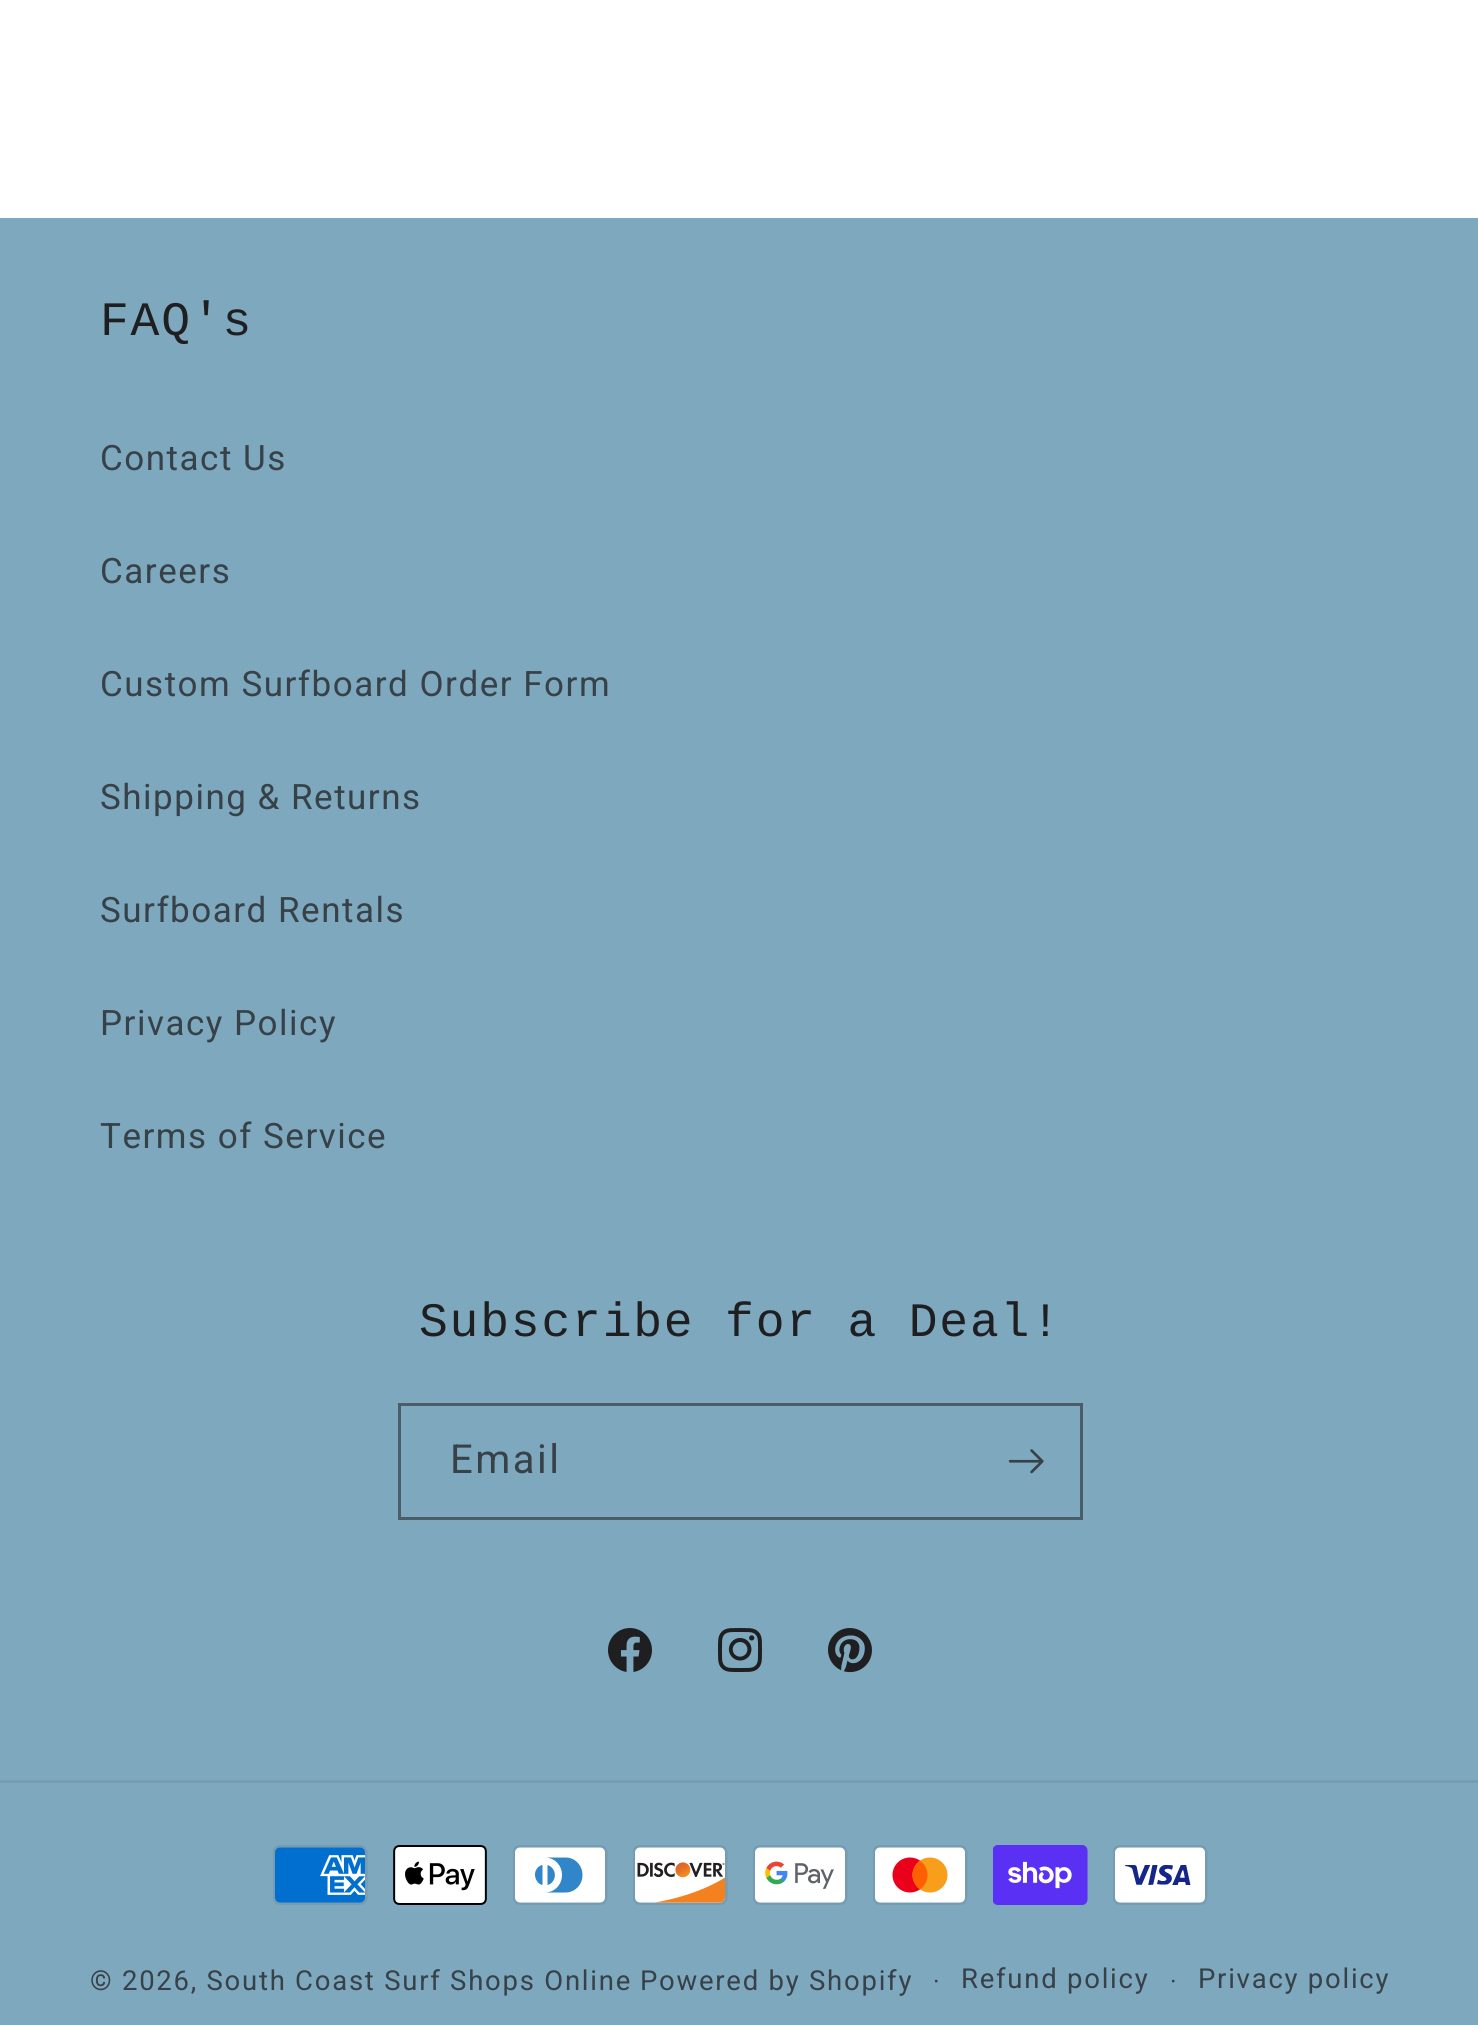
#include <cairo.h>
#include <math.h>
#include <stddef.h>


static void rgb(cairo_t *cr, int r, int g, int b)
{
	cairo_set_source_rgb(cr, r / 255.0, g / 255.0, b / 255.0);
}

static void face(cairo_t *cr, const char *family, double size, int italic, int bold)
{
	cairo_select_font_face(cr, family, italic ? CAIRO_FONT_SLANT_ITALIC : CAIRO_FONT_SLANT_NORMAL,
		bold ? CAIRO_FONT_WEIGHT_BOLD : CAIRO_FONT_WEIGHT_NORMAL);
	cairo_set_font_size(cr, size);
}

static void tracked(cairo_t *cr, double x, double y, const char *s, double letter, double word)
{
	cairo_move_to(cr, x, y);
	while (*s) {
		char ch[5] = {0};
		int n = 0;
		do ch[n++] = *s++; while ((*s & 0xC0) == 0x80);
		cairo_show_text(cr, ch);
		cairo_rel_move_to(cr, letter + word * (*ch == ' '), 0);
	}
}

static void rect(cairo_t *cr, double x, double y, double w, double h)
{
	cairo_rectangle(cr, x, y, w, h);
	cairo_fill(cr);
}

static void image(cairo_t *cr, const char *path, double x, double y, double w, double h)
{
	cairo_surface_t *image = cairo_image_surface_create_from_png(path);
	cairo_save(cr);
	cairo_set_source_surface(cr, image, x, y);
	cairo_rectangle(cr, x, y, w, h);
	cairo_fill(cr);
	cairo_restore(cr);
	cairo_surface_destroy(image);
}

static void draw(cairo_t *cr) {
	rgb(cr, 255, 255, 255);
	cairo_paint(cr);
	rgb(cr, 126, 168, 190);
	rect(cr, 0, 218, 1478, 1807);
	face(cr, "Liberation Mono", 48, 0, 0);
	rgb(cr, 31, 31, 33);
	tracked(cr, 100, 335, "FAQ's", 1.8, 0);
	face(cr, "Roboto", 35, 0, 0);
	rgb(cr, 55, 65, 72);
	tracked(cr, 100, 470, "Contact Us", 1.5, 0);
	tracked(cr, 100, 583, "Careers", 1.5, 0);
	tracked(cr, 100, 696, "Custom Surfboard Order Form", 1.5, 0);
	tracked(cr, 100, 809, "Shipping & Returns", 1.5, 0);
	tracked(cr, 100, 922, "Surfboard Rentals", 1.5, 0);
	tracked(cr, 100, 1035, "Privacy Policy", 1.5, 0);
	tracked(cr, 100, 1148, "Terms of Service", 1.5, 0);
	face(cr, "Liberation Mono", 48, 0, 0);
	rgb(cr, 31, 31, 33);
	tracked(cr, 419, 1336, "Subscribe for a Deal!", 1.8, 0);
	cairo_rectangle(cr, 399.5, 1404.5, 682, 114);
	rgb(cr, 74, 93, 104);
	cairo_set_line_width(cr, 3);
	cairo_stroke(cr);
	face(cr, "Roboto", 40, 0, 0);
	rgb(cr, 55, 65, 72);
	tracked(cr, 450, 1473, "Email", 2.5, 0);
	image(cr, "image0.png", 1008, 1449, 36, 25);
	image(cr, "image1.png", 608, 1628, 44, 44);
	image(cr, "image2.png", 718, 1628, 44, 44);
	image(cr, "image3.png", 828, 1628, 44, 45);
	rgb(cr, 118, 157, 177);
	rect(cr, 0, 1780, 1478, 3);
	image(cr, "image4.png", 273, 1845, 95, 60);
	image(cr, "image5.png", 393, 1845, 94, 60);
	image(cr, "image6.png", 513, 1845, 95, 60);
	image(cr, "image7.png", 633, 1845, 95, 60);
	image(cr, "image8.png", 753, 1845, 95, 60);
	image(cr, "image9.png", 873, 1845, 95, 60);
	image(cr, "image10.png", 993, 1845, 95, 60);
	image(cr, "image11.png", 1113, 1845, 95, 60);
	face(cr, "Roboto", 27.5, 0, 0);
	rgb(cr, 55, 65, 72);
	tracked(cr, 90, 1990, "© 2026, South Coast Surf Shops Online", 1.75, 0);
	tracked(cr, 640, 1990, "Powered by Shopify", 1.75, 0);
	face(cr, "Roboto", 25, 0, 0);
	tracked(cr, 933, 1990, "·", 1.75, 0);
	face(cr, "Roboto", 27.5, 0, 0);
	tracked(cr, 961, 1988, "Refund policy", 1.75, 0);
	face(cr, "Roboto", 25, 0, 0);
	tracked(cr, 1170, 1990, "·", 1.75, 0);
	face(cr, "Roboto", 27.5, 0, 0);
	tracked(cr, 1198, 1988, "Privacy policy", 1.75, 0);
}

int main(void) {
	cairo_surface_t *surface = cairo_image_surface_create(CAIRO_FORMAT_RGB24, 1478, 2025);
	cairo_t *cr = cairo_create(surface);
	cairo_font_options_t *options = cairo_font_options_create();
	cairo_font_options_set_hint_metrics(options, CAIRO_HINT_METRICS_OFF);
	cairo_font_options_set_hint_style(options, CAIRO_HINT_STYLE_NONE);
	cairo_set_font_options(cr, options);
	cairo_set_miter_limit(cr, 4);
	draw(cr);
	cairo_surface_write_to_png(surface, "render.png");
	cairo_font_options_destroy(options);
	cairo_destroy(cr);
	cairo_surface_destroy(surface);
	return 0;
}
